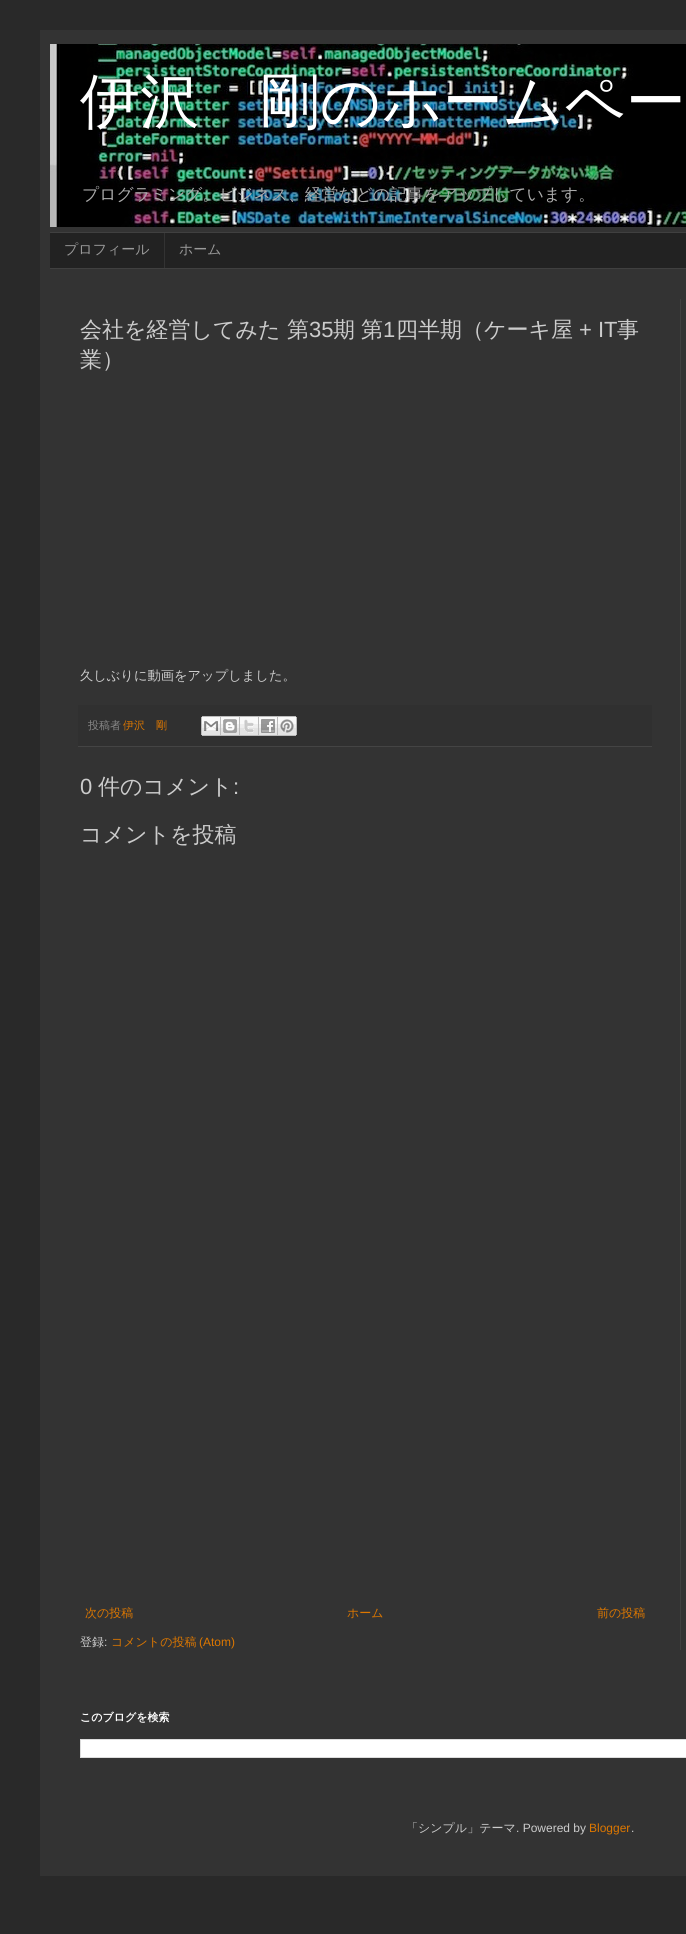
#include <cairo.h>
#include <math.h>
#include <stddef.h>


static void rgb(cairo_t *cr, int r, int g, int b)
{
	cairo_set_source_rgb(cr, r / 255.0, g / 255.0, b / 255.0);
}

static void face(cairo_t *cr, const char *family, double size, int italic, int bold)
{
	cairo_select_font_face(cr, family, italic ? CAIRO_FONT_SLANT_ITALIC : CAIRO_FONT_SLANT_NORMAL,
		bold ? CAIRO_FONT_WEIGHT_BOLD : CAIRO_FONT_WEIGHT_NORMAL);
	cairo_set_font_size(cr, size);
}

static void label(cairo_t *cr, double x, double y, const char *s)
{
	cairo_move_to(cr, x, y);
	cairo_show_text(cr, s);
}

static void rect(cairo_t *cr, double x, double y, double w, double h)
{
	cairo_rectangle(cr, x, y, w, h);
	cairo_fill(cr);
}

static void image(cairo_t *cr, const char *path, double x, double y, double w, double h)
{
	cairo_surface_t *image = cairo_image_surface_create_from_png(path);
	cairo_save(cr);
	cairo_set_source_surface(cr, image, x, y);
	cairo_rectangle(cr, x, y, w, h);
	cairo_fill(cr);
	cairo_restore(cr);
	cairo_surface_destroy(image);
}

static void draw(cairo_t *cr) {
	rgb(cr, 41, 41, 41);
	cairo_paint(cr);
	rgb(cr, 51, 51, 51);
	rect(cr, 40, 30, 646, 1846);
	image(cr, "image0.png", 50, 44, 636, 183);
	face(cr, "WenQuanYi Zen Hei Medium", 60, 0, 0);
	rgb(cr, 255, 255, 255);
	label(cr, 80, 122, "伊沢　剛のホームペー");
	face(cr, "WenQuanYi Zen Hei Medium", 16.8, 0, 0);
	rgb(cr, 170, 170, 170);
	label(cr, 82, 200, "プログラミング。ビジネス、経営などの記事をアップしています。");
	rgb(cr, 34, 34, 34);
	rect(cr, 50, 233, 636, 35);
	rgb(cr, 64, 64, 64);
	rect(cr, 50, 232, 636, 1);
	rect(cr, 50, 268, 636, 1);
	face(cr, "WenQuanYi Zen Hei Medium", 14, 0, 0);
	rgb(cr, 153, 153, 153);
	label(cr, 64, 254, "プロフィール");
	rgb(cr, 51, 51, 51);
	rect(cr, 164, 233, 1, 35);
	rgb(cr, 153, 153, 153);
	label(cr, 179, 254, "ホーム");
	face(cr, "WenQuanYi Zen Hei Medium", 22, 0, 0);
	rgb(cr, 204, 204, 204);
	label(cr, 80, 337, "会社を経営してみた");
	label(cr, 287, 337, "第");
	face(cr, "Liberation Sans", 22, 0, 0);
	label(cr, 309, 337, "35");
	face(cr, "WenQuanYi Zen Hei Medium", 22, 0, 0);
	label(cr, 333, 337, "期");
	label(cr, 361, 337, "第");
	face(cr, "Liberation Sans", 22, 0, 0);
	label(cr, 383, 337, "1");
	face(cr, "WenQuanYi Zen Hei Medium", 22, 0, 0);
	label(cr, 396, 337, "四半期（ケーキ屋");
	face(cr, "Liberation Sans", 22, 0, 0);
	label(cr, 579, 337, "+ IT");
	face(cr, "WenQuanYi Zen Hei Medium", 22, 0, 0);
	label(cr, 617, 337, "事");
	label(cr, 80, 367, "業）");
	face(cr, "WenQuanYi Zen Hei Medium", 13.25, 0, 0);
	label(cr, 80, 680, "久しぶりに動画をアップしました。");
	rgb(cr, 48, 48, 48);
	rect(cr, 78, 705, 574, 41);
	rgb(cr, 68, 68, 68);
	rect(cr, 78, 746, 574, 1);
	face(cr, "WenQuanYi Zen Hei Medium", 11, 0, 0);
	rgb(cr, 136, 136, 136);
	label(cr, 88, 729, "投稿者");
	rgb(cr, 221, 119, 0);
	label(cr, 123, 729, "伊沢　剛");
	image(cr, "image1.png", 201, 716, 20, 20);
	image(cr, "image2.png", 221, 716, 19, 20);
	image(cr, "image3.png", 240, 716, 19, 20);
	image(cr, "image4.png", 259, 716, 19, 20);
	image(cr, "image5.png", 278, 716, 19, 20);
	face(cr, "Liberation Sans", 22, 0, 0);
	rgb(cr, 204, 204, 204);
	label(cr, 80, 794, "0");
	face(cr, "WenQuanYi Zen Hei Medium", 22, 0, 0);
	label(cr, 98, 794, "件のコメント");
	face(cr, "Liberation Sans", 22, 0, 0);
	label(cr, 233, 794, ":");
	face(cr, "WenQuanYi Zen Hei Medium", 22, 0, 0);
	label(cr, 80, 842, "コメントを投稿");
	face(cr, "WenQuanYi Zen Hei Medium", 12, 0, 0);
	rgb(cr, 221, 119, 0);
	label(cr, 85, 1617, "次の投稿");
	label(cr, 347, 1617, "ホーム");
	label(cr, 597, 1617, "前の投稿");
	rgb(cr, 204, 204, 204);
	label(cr, 80, 1646, "登録");
	face(cr, "Liberation Sans", 12, 0, 0);
	label(cr, 104, 1646, ":");
	face(cr, "WenQuanYi Zen Hei Medium", 12, 0, 0);
	rgb(cr, 221, 119, 0);
	label(cr, 111, 1646, "コメントの投稿");
	face(cr, "Liberation Sans", 12, 0, 0);
	label(cr, 199, 1646, "(Atom)");
	rgb(cr, 64, 64, 64);
	rect(cr, 680, 299, 1, 1351);
	face(cr, "WenQuanYi Zen Hei", 11, 0, 1);
	rgb(cr, 255, 255, 255);
	label(cr, 80, 1721, "このブログを検索");
	cairo_rectangle(cr, 80.5, 1739.5, 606, 18);
	cairo_fill_preserve(cr);
	rgb(cr, 221, 221, 221);
	cairo_set_line_width(cr, 1);
	cairo_stroke(cr);
	face(cr, "WenQuanYi Zen Hei Medium", 12, 0, 0);
	rgb(cr, 204, 204, 204);
	label(cr, 406, 1832, "「シンプル」テーマ");
	face(cr, "Liberation Sans", 12, 0, 0);
	label(cr, 516, 1832, ". Powered by");
	rgb(cr, 221, 119, 0);
	label(cr, 589, 1832, "Blogger");
	rgb(cr, 204, 204, 204);
	label(cr, 631, 1832, ".");
}

int main(void) {
	cairo_surface_t *surface = cairo_image_surface_create(CAIRO_FORMAT_RGB24, 686, 1934);
	cairo_t *cr = cairo_create(surface);
	cairo_font_options_t *options = cairo_font_options_create();
	cairo_font_options_set_hint_metrics(options, CAIRO_HINT_METRICS_OFF);
	cairo_font_options_set_hint_style(options, CAIRO_HINT_STYLE_NONE);
	cairo_set_font_options(cr, options);
	cairo_set_miter_limit(cr, 4);
	draw(cr);
	cairo_surface_write_to_png(surface, "render.png");
	cairo_font_options_destroy(options);
	cairo_destroy(cr);
	cairo_surface_destroy(surface);
	return 0;
}
